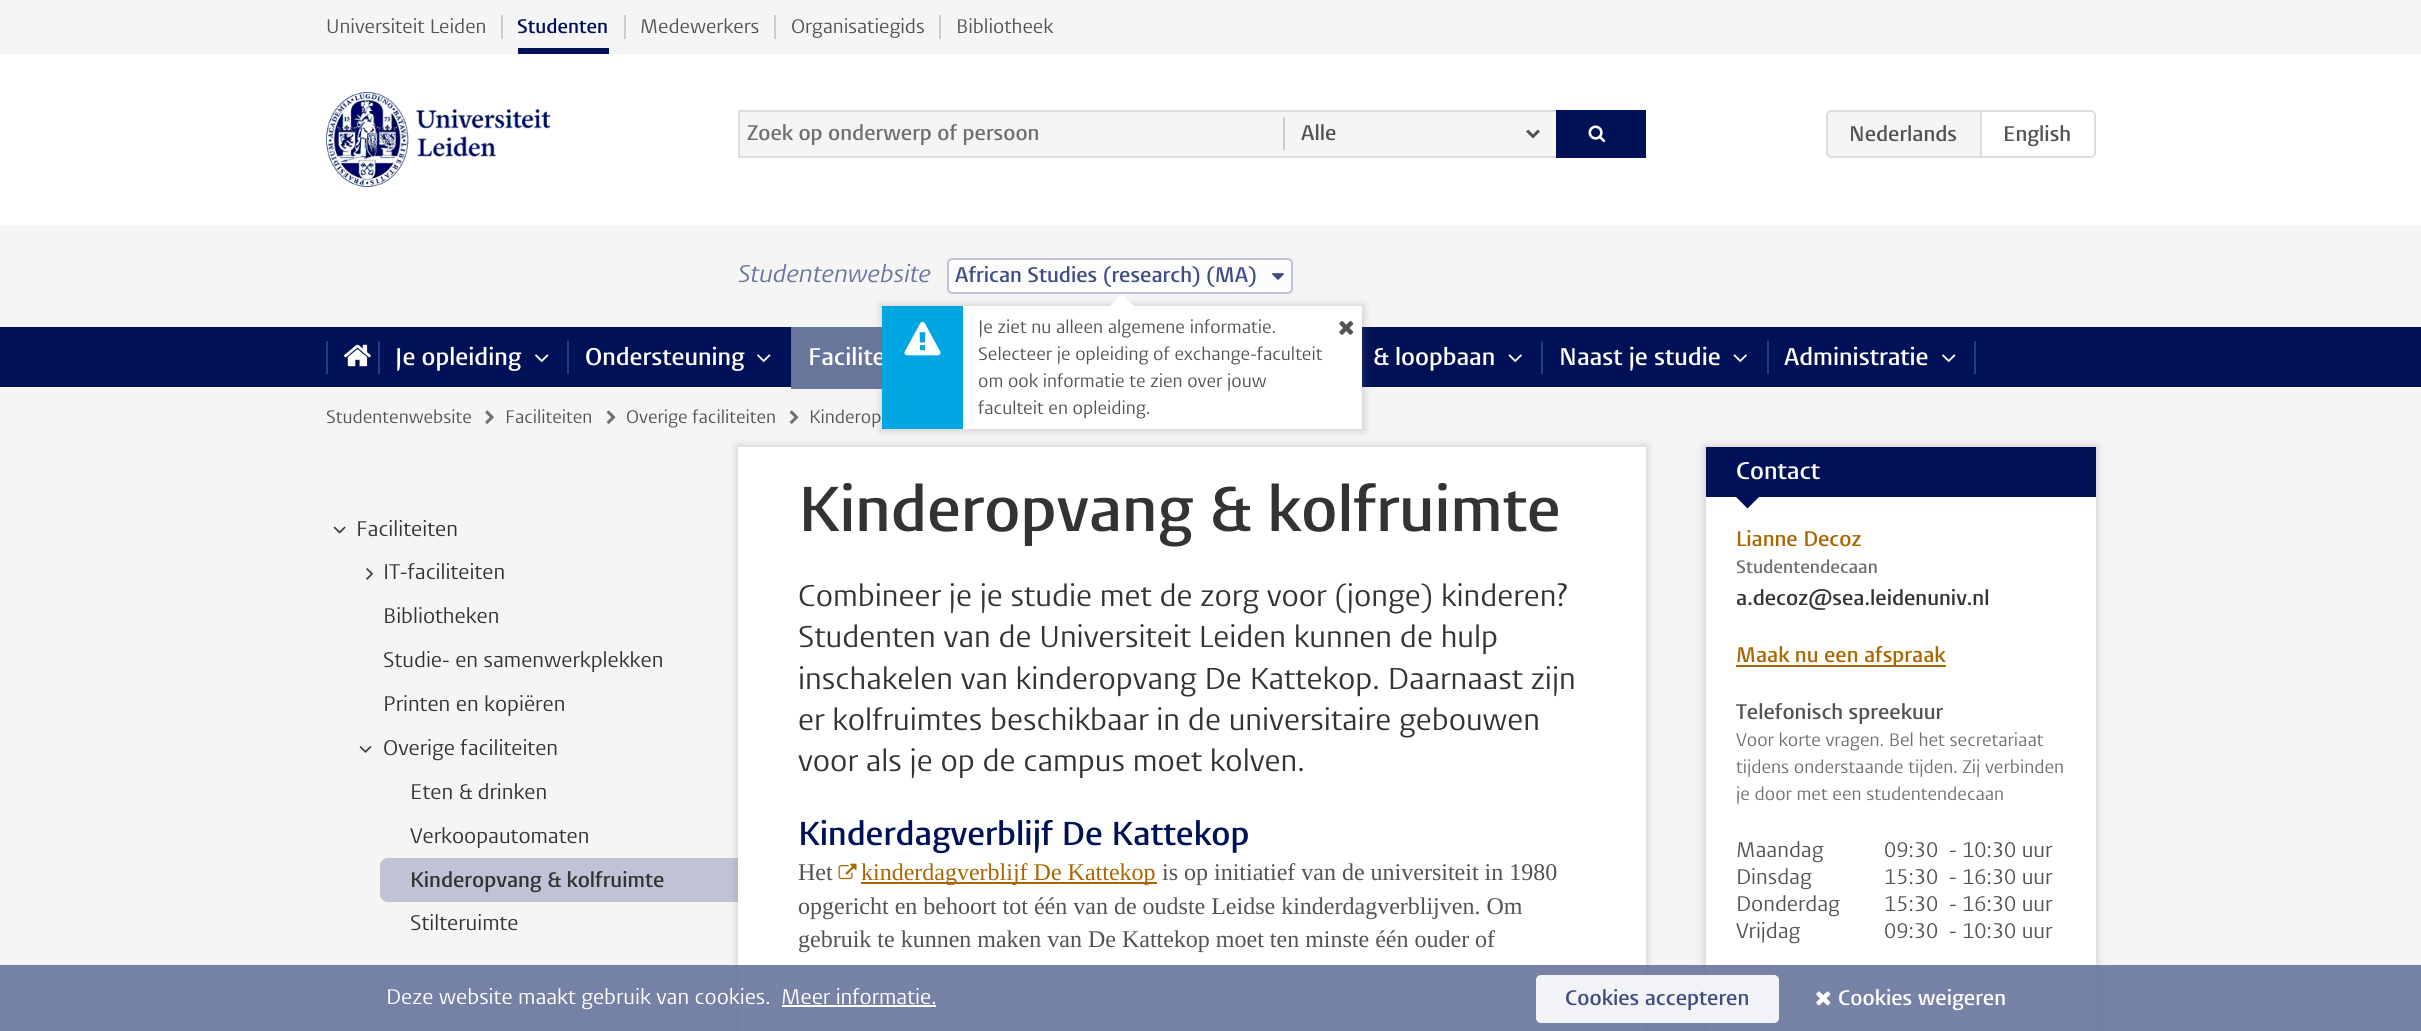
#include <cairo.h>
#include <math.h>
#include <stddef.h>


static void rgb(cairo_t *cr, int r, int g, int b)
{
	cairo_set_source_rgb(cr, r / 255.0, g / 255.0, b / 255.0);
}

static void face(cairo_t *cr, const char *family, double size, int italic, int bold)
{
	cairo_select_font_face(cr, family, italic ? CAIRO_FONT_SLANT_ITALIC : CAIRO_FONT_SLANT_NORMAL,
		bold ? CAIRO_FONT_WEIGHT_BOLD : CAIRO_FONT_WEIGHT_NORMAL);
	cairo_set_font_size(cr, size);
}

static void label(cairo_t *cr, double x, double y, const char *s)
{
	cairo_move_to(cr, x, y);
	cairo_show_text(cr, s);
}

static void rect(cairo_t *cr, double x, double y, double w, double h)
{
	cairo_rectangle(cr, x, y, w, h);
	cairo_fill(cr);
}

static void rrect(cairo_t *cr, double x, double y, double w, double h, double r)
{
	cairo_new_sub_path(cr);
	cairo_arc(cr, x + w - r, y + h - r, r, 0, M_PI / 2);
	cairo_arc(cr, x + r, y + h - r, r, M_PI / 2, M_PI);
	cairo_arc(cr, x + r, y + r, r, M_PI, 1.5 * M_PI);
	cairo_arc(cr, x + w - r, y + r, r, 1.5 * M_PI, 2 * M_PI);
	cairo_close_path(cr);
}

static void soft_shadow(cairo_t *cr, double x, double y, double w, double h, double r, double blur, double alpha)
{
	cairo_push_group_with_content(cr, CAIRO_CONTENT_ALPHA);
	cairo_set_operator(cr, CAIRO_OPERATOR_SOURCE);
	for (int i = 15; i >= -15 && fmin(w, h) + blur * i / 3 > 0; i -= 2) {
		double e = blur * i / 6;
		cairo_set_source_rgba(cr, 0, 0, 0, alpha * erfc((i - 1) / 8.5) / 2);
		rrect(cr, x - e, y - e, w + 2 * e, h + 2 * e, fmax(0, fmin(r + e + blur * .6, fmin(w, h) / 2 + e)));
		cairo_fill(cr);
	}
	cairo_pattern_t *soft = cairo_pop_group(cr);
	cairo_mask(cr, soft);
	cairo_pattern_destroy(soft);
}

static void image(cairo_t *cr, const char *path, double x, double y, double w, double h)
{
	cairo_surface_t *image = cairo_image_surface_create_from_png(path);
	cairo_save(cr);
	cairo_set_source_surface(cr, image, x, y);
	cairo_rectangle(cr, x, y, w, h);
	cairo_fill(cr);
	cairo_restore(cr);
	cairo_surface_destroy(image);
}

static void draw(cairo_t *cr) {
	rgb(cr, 245, 245, 245);
	cairo_paint(cr);
	rgb(cr, 255, 255, 255);
	rect(cr, 0, 54, 2421, 171);
	rgb(cr, 204, 204, 204);
	rect(cr, 501, 15, 2, 24);
	face(cr, "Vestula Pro", 19.5, 0, 0);
	rgb(cr, 83, 83, 83);
	label(cr, 326, 33, "Universiteit Leiden");
	rgb(cr, 204, 204, 204);
	rect(cr, 624, 15, 2, 24);
	face(cr, "Vestula Pro SemiBold", 19.5, 0, 0);
	rgb(cr, 0, 17, 88);
	label(cr, 517, 33, "Studenten");
	rect(cr, 518, 48, 91, 6);
	rgb(cr, 204, 204, 204);
	rect(cr, 774, 15, 2, 24);
	face(cr, "Vestula Pro", 19.5, 0, 0);
	rgb(cr, 83, 83, 83);
	label(cr, 640, 33, "Medewerkers");
	rgb(cr, 204, 204, 204);
	rect(cr, 939, 15, 2, 24);
	rgb(cr, 83, 83, 83);
	label(cr, 791, 33, "Organisatiegids");
	label(cr, 956, 33, "Bibliotheek");
	image(cr, "image0.png", 326, 92, 225, 95);
	rgb(cr, 245, 245, 245);
	rect(cr, 740, 112, 816, 44);
	rgb(cr, 221, 221, 221);
	rect(cr, 738, 110, 818, 2);
	rect(cr, 738, 156, 818, 2);
	rect(cr, 738, 110, 2, 48);
	face(cr, "Vestula Pro SemiBold", 21, 0, 0);
	rgb(cr, 112, 112, 112);
	label(cr, 747, 140, "Zoek op onderwerp of persoon");
	rgb(cr, 204, 204, 204);
	rect(cr, 1283, 117, 2, 33);
	rgb(cr, 83, 83, 83);
	label(cr, 1301, 140, "Alle");
	image(cr, "image1.png", 1526, 129, 14, 10);
	rgb(cr, 0, 17, 88);
	rect(cr, 1556, 110, 90, 48);
	image(cr, "image2.png", 1588, 125, 18, 18);
	rgb(cr, 245, 245, 245);
	cairo_new_path(cr);
	cairo_move_to(cr, 1831, 111);
	cairo_line_to(cr, 1981, 111);
	cairo_line_to(cr, 1981, 157);
	cairo_line_to(cr, 1831, 157);
	cairo_curve_to(cr, 1829, 157, 1827, 155, 1827, 153);
	cairo_line_to(cr, 1827, 115);
	cairo_curve_to(cr, 1827, 113, 1829, 111, 1831, 111);
	cairo_close_path(cr);
	cairo_fill_preserve(cr);
	rgb(cr, 221, 221, 221);
	cairo_stroke(cr);
	rgb(cr, 83, 83, 83);
	label(cr, 1849, 141, "Nederlands");
	rgb(cr, 255, 255, 255);
	cairo_new_path(cr);
	cairo_move_to(cr, 1981, 111);
	cairo_line_to(cr, 2091, 111);
	cairo_curve_to(cr, 2093, 111, 2095, 113, 2095, 115);
	cairo_line_to(cr, 2095, 153);
	cairo_curve_to(cr, 2095, 155, 2093, 157, 2091, 157);
	cairo_line_to(cr, 1981, 157);
	cairo_close_path(cr);
	cairo_fill_preserve(cr);
	rgb(cr, 221, 221, 221);
	cairo_stroke(cr);
	rgb(cr, 83, 83, 83);
	label(cr, 2003, 141, "English");
	face(cr, "Vestula Pro", 24, 1, 0);
	rgb(cr, 104, 118, 156);
	label(cr, 738, 282, "Studentenwebsite");
	rgb(cr, 252, 252, 252);
	rrect(cr, 948, 259, 344, 34, 4);
	cairo_fill_preserve(cr);
	rgb(cr, 191, 195, 213);
	cairo_stroke(cr);
	face(cr, "Vestula Pro SemiBold", 21, 0, 0);
	rgb(cr, 64, 77, 130);
	label(cr, 955, 282, "African Studies (research) (MA)");
	image(cr, "image3.png", 1272, 273, 12, 7);
	rgb(cr, 0, 17, 88);
	rect(cr, 0, 327, 2421, 60);
	rgb(cr, 104, 118, 156);
	rect(cr, 791, 327, 91, 62);
	rgb(cr, 120, 110, 100);
	soft_shadow(cr, 881, 305, 483, 126, 0, 4, 0.3);
	rgb(cr, 255, 255, 255);
	rect(cr, 963, 306, 399, 123);
	cairo_new_path(cr);
	cairo_move_to(cr, 1134, 306);
	cairo_line_to(cr, 1110, 306);
	cairo_line_to(cr, 1122, 294);
	cairo_close_path(cr);
	cairo_fill(cr);
	face(cr, "Vestula Pro SemiBold", 24, 0, 0);
	label(cr, 808, 365, "Facilite");
	rgb(cr, 0, 166, 226);
	rect(cr, 882, 306, 81, 123);
	image(cr, "image4.png", 904, 321, 37, 35);
	face(cr, "Vestula Pro", 18, 0, 0);
	rgb(cr, 83, 83, 83);
	label(cr, 978, 333, "Je ziet nu alleen algemene informatie.");
	image(cr, "image5.png", 1339, 320, 15, 15);
	label(cr, 978, 360, "Selecteer je opleiding of exchange-faculteit");
	label(cr, 978, 387, "om ook informatie te zien over jouw");
	label(cr, 978, 414, "faculteit en opleiding.");
	rgb(cr, 37, 59, 133);
	rect(cr, 326, 341, 2, 33);
	image(cr, "image6.png", 344, 344, 27, 23);
	rect(cr, 378, 341, 2, 33);
	face(cr, "Vestula Pro SemiBold", 24, 0, 0);
	rgb(cr, 255, 255, 255);
	label(cr, 395, 365, "Je opleiding");
	image(cr, "image7.png", 535, 354, 14, 9);
	rgb(cr, 37, 59, 133);
	rect(cr, 567, 341, 2, 33);
	rgb(cr, 255, 255, 255);
	label(cr, 585, 365, "Ondersteuning");
	image(cr, "image7.png", 757, 354, 14, 9);
	label(cr, 1373, 365, "& loopbaan");
	image(cr, "image8.png", 1508, 354, 14, 9);
	rgb(cr, 37, 59, 133);
	rect(cr, 1541, 341, 2, 33);
	rgb(cr, 255, 255, 255);
	label(cr, 1559, 365, "Naast je studie");
	image(cr, "image8.png", 1733, 354, 14, 9);
	rgb(cr, 37, 59, 133);
	rect(cr, 1974, 341, 2, 33);
	rect(cr, 1767, 341, 2, 33);
	rgb(cr, 255, 255, 255);
	label(cr, 1784, 365, "Administratie");
	image(cr, "image7.png", 1942, 354, 14, 9);
	face(cr, "Vestula Pro", 18, 0, 0);
	rgb(cr, 83, 83, 83);
	label(cr, 326, 423, "Studentenwebsite");
	image(cr, "image9.png", 485, 410, 9, 14);
	label(cr, 505, 423, "Faciliteiten");
	image(cr, "image10.png", 606, 410, 10, 14);
	label(cr, 626, 423, "Overige faciliteiten");
	image(cr, "image10.png", 789, 410, 10, 14);
	label(cr, 809, 423, "Kinderop");
	image(cr, "image11.png", 333, 526, 13, 8);
	face(cr, "Vestula Pro", 21, 0, 0);
	rgb(cr, 51, 51, 51);
	label(cr, 356, 536, "Faciliteiten");
	image(cr, "image12.png", 366, 568, 7, 12);
	label(cr, 383, 579, "IT-faciliteiten");
	label(cr, 383, 623, "Bibliotheken");
	label(cr, 383, 667, "Studie- en samenwerkplekken");
	label(cr, 383, 711, "Printen en kopiëren");
	image(cr, "image13.png", 359, 746, 13, 7);
	label(cr, 383, 755, "Overige faciliteiten");
	label(cr, 410, 799, "Eten & drinken");
	label(cr, 410, 843, "Verkoopautomaten");
	rgb(cr, 191, 195, 213);
	cairo_new_path(cr);
	cairo_move_to(cr, 388, 858);
	cairo_line_to(cr, 738, 858);
	cairo_line_to(cr, 738, 902);
	cairo_line_to(cr, 388, 902);
	cairo_curve_to(cr, 383.5, 902, 380, 898.5, 380, 894);
	cairo_line_to(cr, 380, 866);
	cairo_curve_to(cr, 380, 861.5, 383.5, 858, 388, 858);
	cairo_close_path(cr);
	cairo_fill(cr);
	face(cr, "Vestula Pro SemiBold", 21, 0, 0);
	rgb(cr, 51, 51, 51);
	label(cr, 410, 887, "Kinderopvang & kolfruimte");
	face(cr, "Vestula Pro", 21, 0, 0);
	label(cr, 410, 930, "Stilteruimte");
	rgb(cr, 120, 110, 100);
	soft_shadow(cr, 737, 446, 910, 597, 0, 4, 0.3);
	rgb(cr, 255, 255, 255);
	rect(cr, 738, 447, 908, 584);
	face(cr, "Vestula Pro SemiBold", 63, 0, 0);
	rgb(cr, 51, 51, 51);
	label(cr, 798, 531, "Kinderopvang & kolfruimte");
	face(cr, "Vestula Pro", 30, 0, 0);
	label(cr, 798, 606, "Combineer je je studie met de zorg voor (jonge) kinderen?");
	label(cr, 798, 647, "Studenten van de Universiteit Leiden kunnen de hulp");
	label(cr, 798, 689, "inschakelen van kinderopvang De Kattekop. Daarnaast zijn");
	label(cr, 798, 730, "er kolfruimtes beschikbaar in de universitaire gebouwen");
	label(cr, 798, 771, "voor als je op de campus moet kolven.");
	face(cr, "Vestula Pro SemiBold", 33, 0, 0);
	rgb(cr, 0, 17, 88);
	label(cr, 798, 845, "Kinderdagverblijf De Kattekop");
	face(cr, "Liberation Serif", 24, 0, 0);
	rgb(cr, 83, 83, 83);
	label(cr, 798, 880, "Het");
	image(cr, "image14.png", 838, 863, 19, 17);
	rgb(cr, 170, 102, 0);
	rect(cr, 861, 882, 296, 2);
	label(cr, 861, 880, "kinderdagverblijf De Kattekop");
	rgb(cr, 83, 83, 83);
	label(cr, 1162, 880, "is op initiatief van de universiteit in 1980");
	label(cr, 798, 914, "opgericht en behoort tot één van de oudste Leidse kinderdagverblijven. Om");
	label(cr, 798, 947, "gebruik te kunnen maken van De Kattekop moet ten minste één ouder of");
	rgb(cr, 120, 110, 100);
	soft_shadow(cr, 1704, 446, 393, 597, 0, 4, 0.3);
	rgb(cr, 255, 255, 255);
	rect(cr, 1706, 497, 390, 534);
	rgb(cr, 0, 17, 88);
	rect(cr, 1706, 447, 390, 50);
	face(cr, "Vestula Pro SemiBold", 24, 0, 0);
	rgb(cr, 255, 255, 255);
	label(cr, 1736, 479, "Contact");
	rgb(cr, 0, 17, 88);
	cairo_new_path(cr);
	cairo_move_to(cr, 1735.5, 496.5);
	cairo_line_to(cr, 1759.5, 496.5);
	cairo_line_to(cr, 1747.5, 508.5);
	cairo_close_path(cr);
	cairo_fill(cr);
	face(cr, "Vestula Pro SemiBold", 21, 0, 0);
	rgb(cr, 170, 102, 0);
	label(cr, 1736, 546, "Lianne Decoz");
	face(cr, "Vestula Pro SemiBold", 18, 0, 0);
	rgb(cr, 112, 112, 112);
	label(cr, 1736, 573, "Studentendecaan");
	face(cr, "Vestula Pro SemiBold", 21, 0, 0);
	rgb(cr, 51, 51, 51);
	label(cr, 1736, 605, "a.decoz@sea.leidenuniv.nl");
	rgb(cr, 170, 102, 0);
	rect(cr, 1736, 665, 210, 2);
	label(cr, 1736, 662, "Maak nu een afspraak");
	rgb(cr, 83, 83, 83);
	label(cr, 1736, 719, "Telefonisch spreekuur");
	face(cr, "Vestula Pro", 18, 0, 0);
	rgb(cr, 112, 112, 112);
	label(cr, 1736, 746, "Voor korte vragen. Bel het secretariaat");
	label(cr, 1736, 773, "tijdens onderstaande tijden. Zij verbinden");
	label(cr, 1736, 800, "je door met een studentendecaan");
	face(cr, "Vestula Pro", 21, 0, 0);
	rgb(cr, 83, 83, 83);
	label(cr, 1736, 857, "Maandag");
	label(cr, 1884, 857, "09:30");
	label(cr, 1949, 857, "- 10:30 uur");
	label(cr, 1736, 884, "Dinsdag");
	label(cr, 1884, 884, "15:30");
	label(cr, 1949, 884, "- 16:30 uur");
	label(cr, 1736, 911, "Donderdag");
	label(cr, 1884, 911, "15:30");
	label(cr, 1949, 911, "- 16:30 uur");
	label(cr, 1736, 938, "Vrijdag");
	label(cr, 1884, 938, "09:30");
	label(cr, 1949, 938, "- 10:30 uur");
	cairo_set_source_rgba(cr, 0.408, 0.463, 0.612, 0.9);
	rect(cr, 0, 965, 2421, 66);
	rgb(cr, 255, 255, 255);
	label(cr, 386, 1004, "Deze website maakt gebruik van cookies.");
	label(cr, 781, 1004, "Meer informatie.");
	rect(cr, 782, 1005, 154, 2);
	cairo_set_source_rgba(cr, 1, 1, 1, 0.9);
	rrect(cr, 1536, 975, 243, 48, 5);
	cairo_fill(cr);
	face(cr, "Vestula Pro SemiBold", 21, 0, 0);
	rgb(cr, 64, 77, 130);
	label(cr, 1565, 1005, "Cookies accepteren");
	image(cr, "image15.png", 1816, 991, 15, 15);
	rgb(cr, 255, 255, 255);
	label(cr, 1838, 1005, "Cookies weigeren");
}

int main(void) {
	cairo_surface_t *surface = cairo_image_surface_create(CAIRO_FORMAT_RGB24, 2421, 1031);
	cairo_t *cr = cairo_create(surface);
	cairo_font_options_t *options = cairo_font_options_create();
	cairo_font_options_set_hint_metrics(options, CAIRO_HINT_METRICS_OFF);
	cairo_font_options_set_hint_style(options, CAIRO_HINT_STYLE_NONE);
	cairo_set_font_options(cr, options);
	cairo_set_miter_limit(cr, 4);
	draw(cr);
	cairo_surface_write_to_png(surface, "render.png");
	cairo_font_options_destroy(options);
	cairo_destroy(cr);
	cairo_surface_destroy(surface);
	return 0;
}
